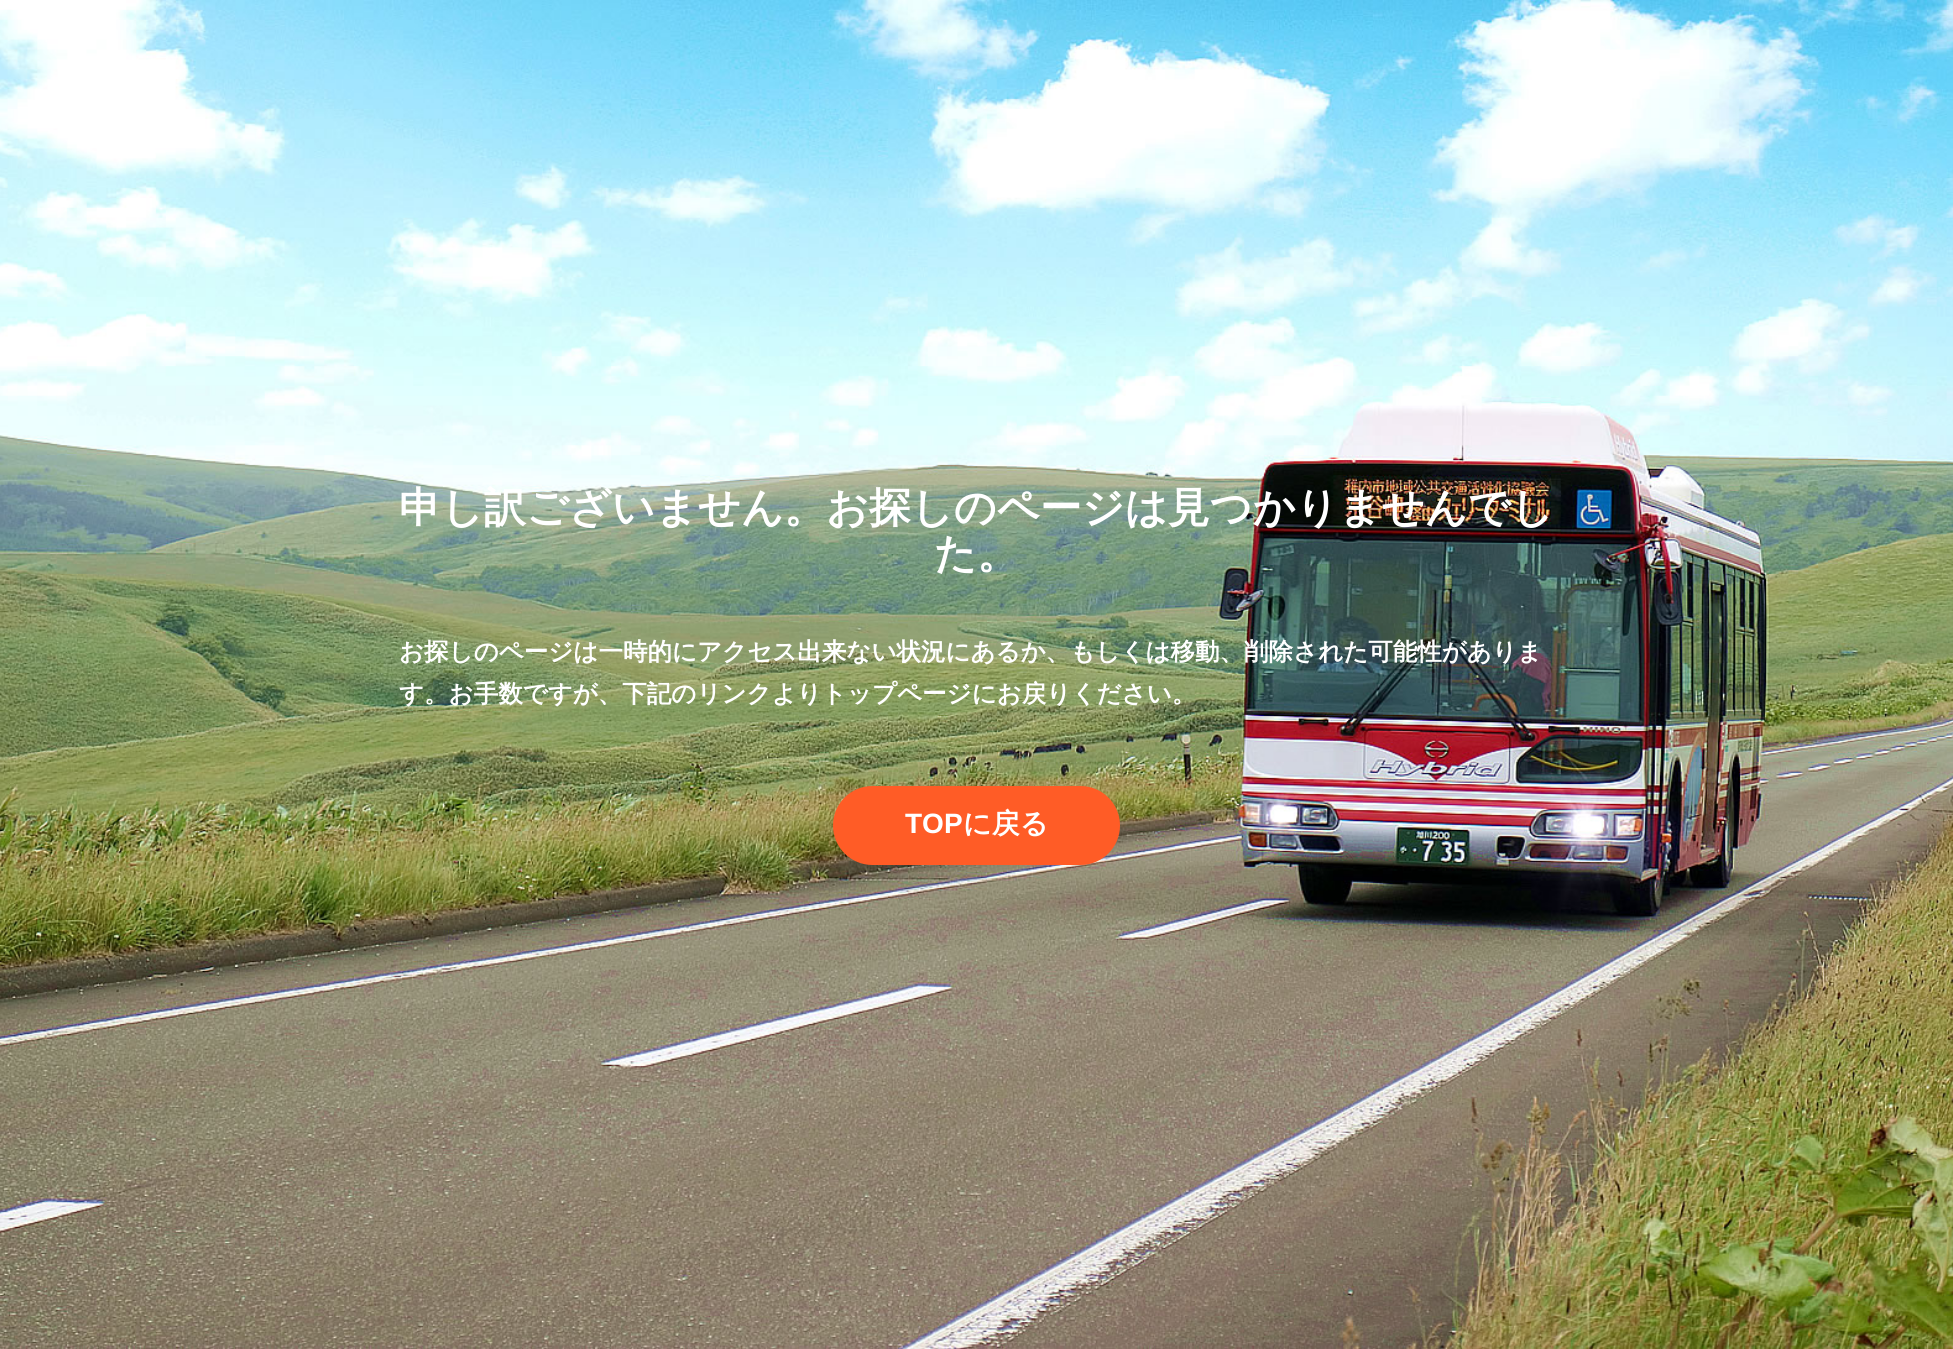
#include <cairo.h>
#include <math.h>
#include <stddef.h>


static void rgb(cairo_t *cr, int r, int g, int b)
{
	cairo_set_source_rgb(cr, r / 255.0, g / 255.0, b / 255.0);
}

static void face(cairo_t *cr, const char *family, double size, int italic, int bold)
{
	cairo_select_font_face(cr, family, italic ? CAIRO_FONT_SLANT_ITALIC : CAIRO_FONT_SLANT_NORMAL,
		bold ? CAIRO_FONT_WEIGHT_BOLD : CAIRO_FONT_WEIGHT_NORMAL);
	cairo_set_font_size(cr, size);
}

static void label(cairo_t *cr, double x, double y, const char *s)
{
	cairo_move_to(cr, x, y);
	cairo_show_text(cr, s);
}

static void rrect(cairo_t *cr, double x, double y, double w, double h, double r)
{
	cairo_new_sub_path(cr);
	cairo_arc(cr, x + w - r, y + h - r, r, 0, M_PI / 2);
	cairo_arc(cr, x + r, y + h - r, r, M_PI / 2, M_PI);
	cairo_arc(cr, x + r, y + r, r, M_PI, 1.5 * M_PI);
	cairo_arc(cr, x + w - r, y + r, r, 1.5 * M_PI, 2 * M_PI);
	cairo_close_path(cr);
}

static void image(cairo_t *cr, const char *path, double x, double y, double w, double h)
{
	cairo_surface_t *image = cairo_image_surface_create_from_png(path);
	cairo_save(cr);
	cairo_set_source_surface(cr, image, x, y);
	cairo_rectangle(cr, x, y, w, h);
	cairo_fill(cr);
	cairo_restore(cr);
	cairo_surface_destroy(image);
}

static void draw(cairo_t *cr) {
	rgb(cr, 255, 255, 255);
	cairo_paint(cr);
	image(cr, "image0.png", 0, 0, 1953, 1349);
	face(cr, "WenQuanYi Zen Hei", 42, 0, 1);
	rgb(cr, 255, 255, 255);
	label(cr, 399, 522, "申し訳ございません。お探しのページは見つかりませんでし");
	label(cr, 934, 568, "た。");
	face(cr, "WenQuanYi Zen Hei", 24.5, 0, 1);
	label(cr, 399, 660, "お探しのページは一時的にアクセス出来ない状況にあるか、もしくは移動、削除された可能性がありま");
	label(cr, 399, 702, "す。お手数ですが、下記のリンクよりトップページにお戻りください。");
	rgb(cr, 255, 92, 38);
	rrect(cr, 834, 787, 285, 77, 38.5);
	cairo_fill_preserve(cr);
	cairo_stroke(cr);
	face(cr, "Liberation Sans", 28, 0, 1);
	rgb(cr, 255, 255, 255);
	label(cr, 905, 833, "TOP");
	face(cr, "WenQuanYi Zen Hei", 28, 0, 1);
	label(cr, 963, 833, "に戻る");
}

int main(void) {
	cairo_surface_t *surface = cairo_image_surface_create(CAIRO_FORMAT_RGB24, 1953, 1349);
	cairo_t *cr = cairo_create(surface);
	cairo_font_options_t *options = cairo_font_options_create();
	cairo_font_options_set_hint_metrics(options, CAIRO_HINT_METRICS_OFF);
	cairo_font_options_set_hint_style(options, CAIRO_HINT_STYLE_NONE);
	cairo_set_font_options(cr, options);
	cairo_set_miter_limit(cr, 4);
	draw(cr);
	cairo_surface_write_to_png(surface, "render.png");
	cairo_font_options_destroy(options);
	cairo_destroy(cr);
	cairo_surface_destroy(surface);
	return 0;
}
